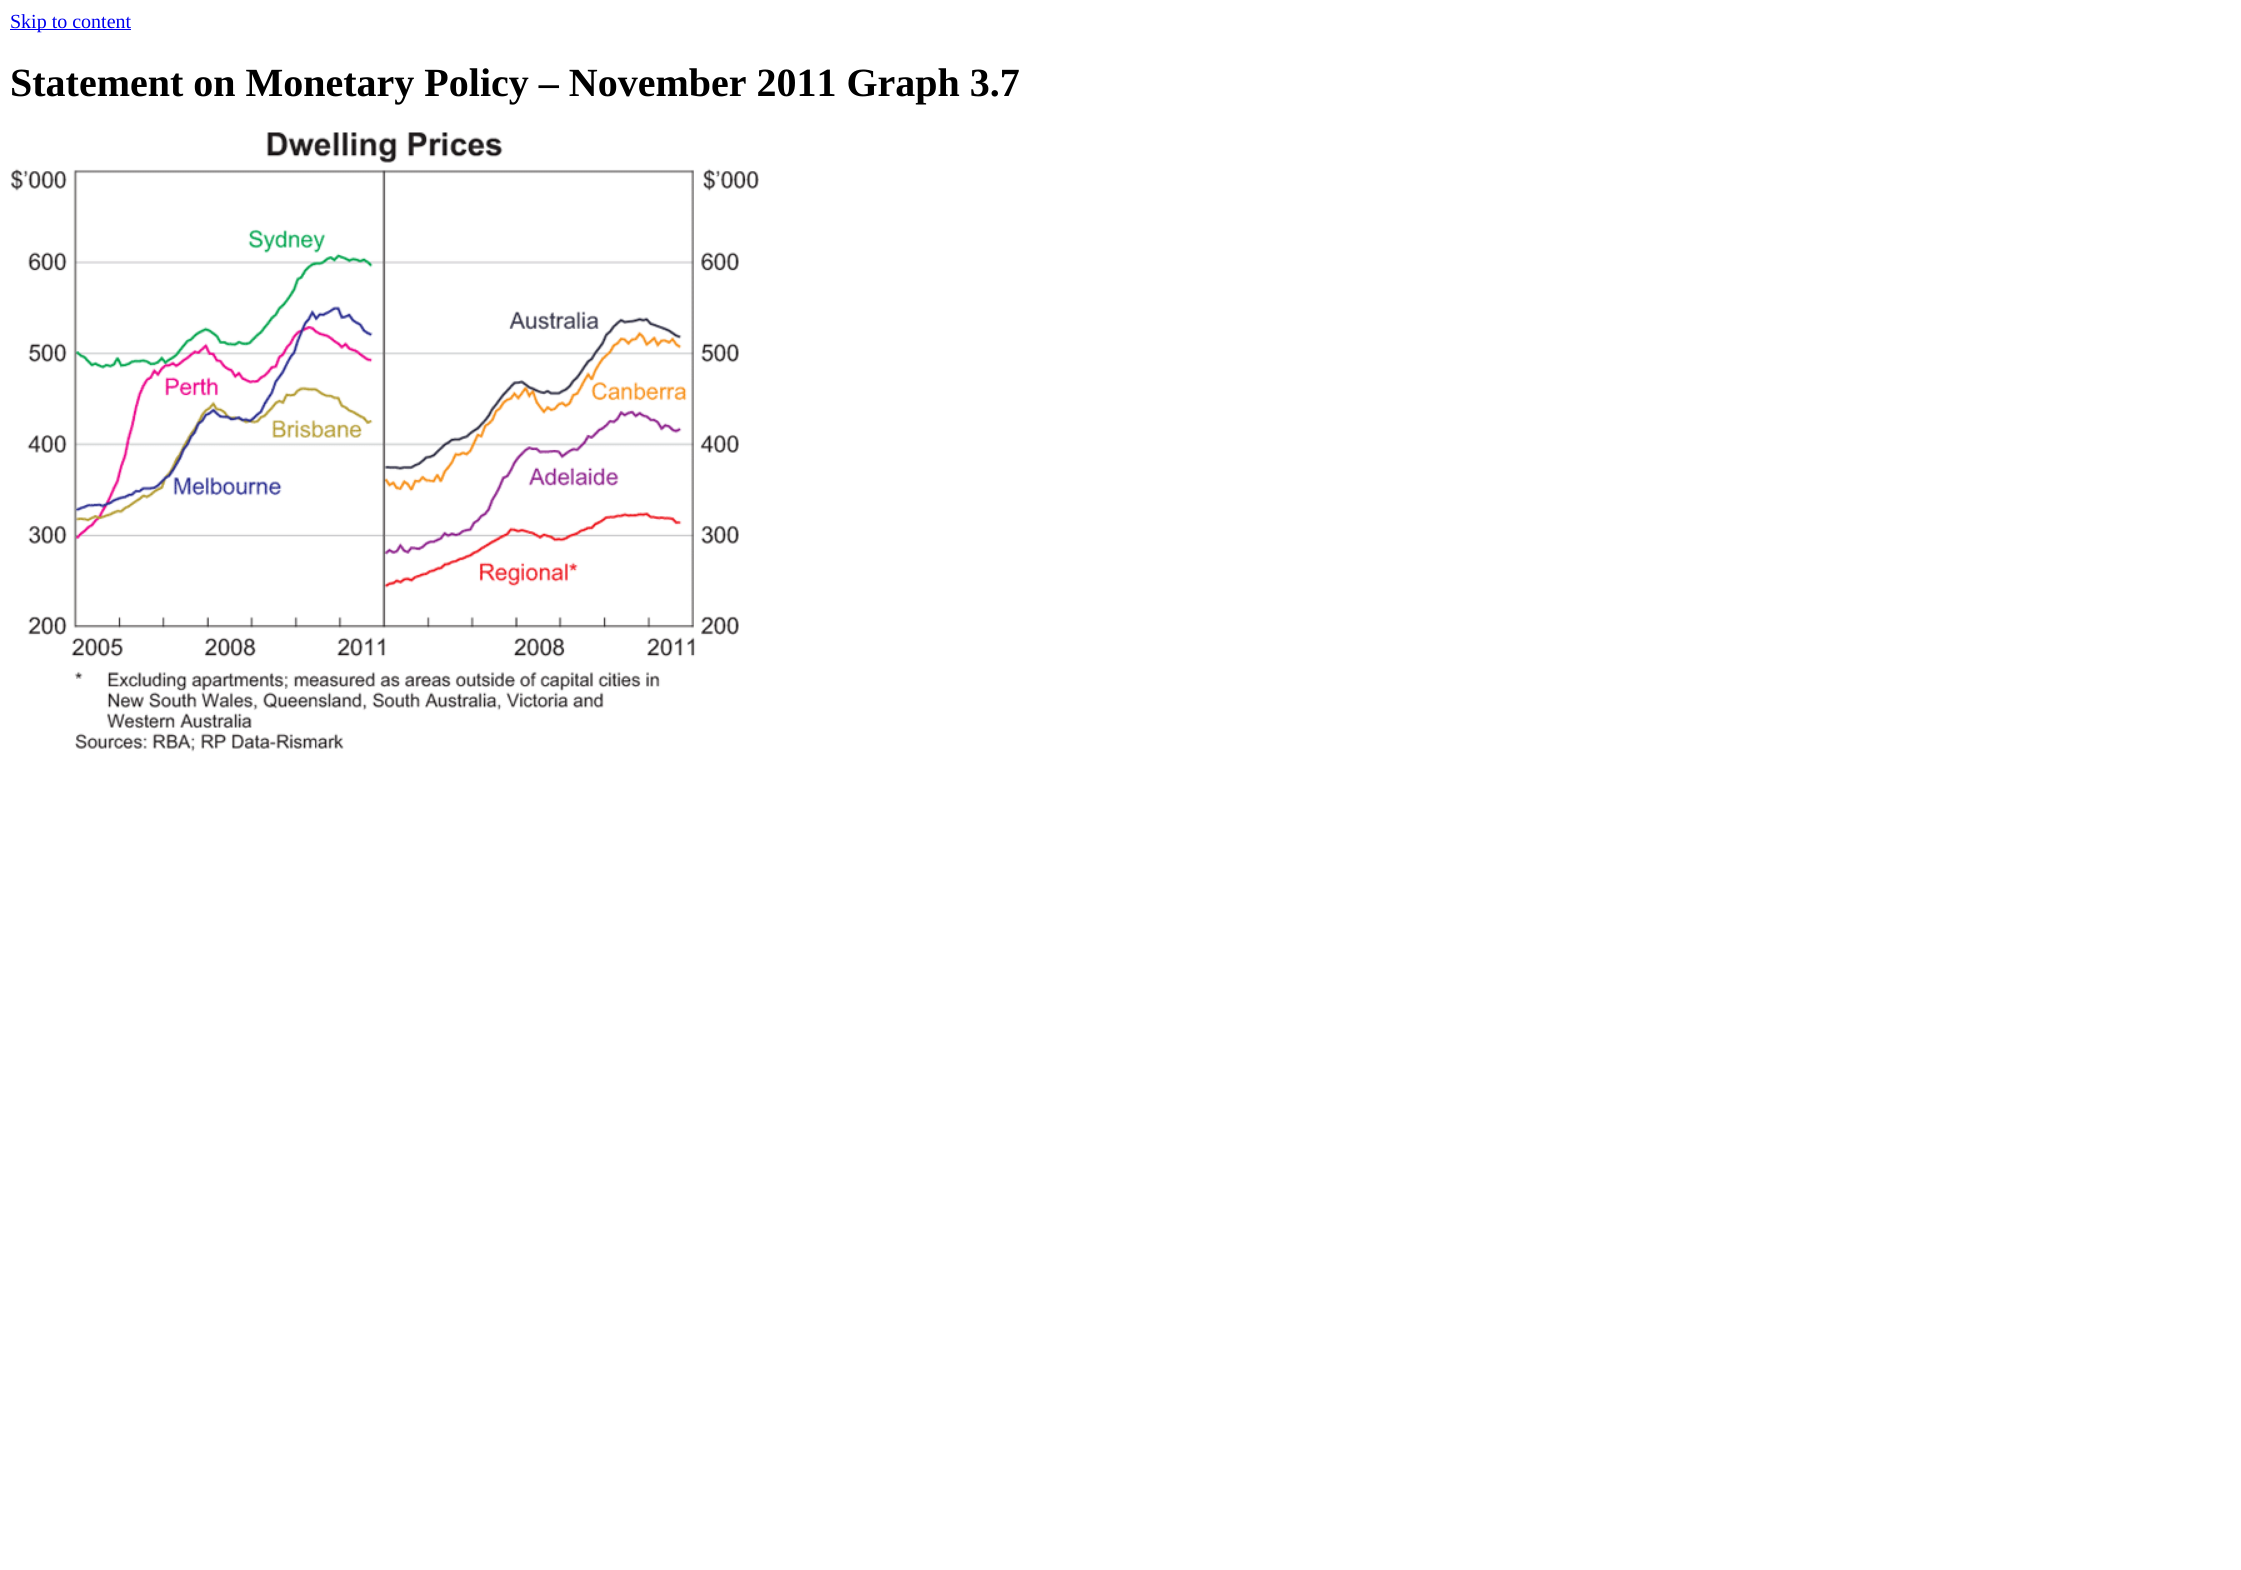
#include <cairo.h>
#include <math.h>
#include <stddef.h>


static void rgb(cairo_t *cr, int r, int g, int b)
{
	cairo_set_source_rgb(cr, r / 255.0, g / 255.0, b / 255.0);
}

static void face(cairo_t *cr, const char *family, double size, int italic, int bold)
{
	cairo_select_font_face(cr, family, italic ? CAIRO_FONT_SLANT_ITALIC : CAIRO_FONT_SLANT_NORMAL,
		bold ? CAIRO_FONT_WEIGHT_BOLD : CAIRO_FONT_WEIGHT_NORMAL);
	cairo_set_font_size(cr, size);
}

static void label(cairo_t *cr, double x, double y, const char *s)
{
	cairo_move_to(cr, x, y);
	cairo_show_text(cr, s);
}

static void rect(cairo_t *cr, double x, double y, double w, double h)
{
	cairo_rectangle(cr, x, y, w, h);
	cairo_fill(cr);
}

static void image(cairo_t *cr, const char *path, double x, double y, double w, double h)
{
	cairo_surface_t *image = cairo_image_surface_create_from_png(path);
	cairo_save(cr);
	cairo_set_source_surface(cr, image, x, y);
	cairo_rectangle(cr, x, y, w, h);
	cairo_fill(cr);
	cairo_restore(cr);
	cairo_surface_destroy(image);
}

static void draw(cairo_t *cr) {
	rgb(cr, 255, 255, 255);
	cairo_paint(cr);
	rgb(cr, 0, 0, 238);
	rect(cr, 10, 29, 121, 1);
	face(cr, "Liberation Serif", 20, 0, 0);
	label(cr, 10, 28, "Skip to content");
	face(cr, "Liberation Serif", 40, 0, 1);
	rgb(cr, 0, 0, 0);
	label(cr, 10, 96, "Statement on Monetary Policy – November 2011 Graph 3.7");
	image(cr, "image0.png", 10, 132, 749, 620);
}

int main(void) {
	cairo_surface_t *surface = cairo_image_surface_create(CAIRO_FORMAT_RGB24, 2241, 1570);
	cairo_t *cr = cairo_create(surface);
	cairo_font_options_t *options = cairo_font_options_create();
	cairo_font_options_set_hint_metrics(options, CAIRO_HINT_METRICS_OFF);
	cairo_font_options_set_hint_style(options, CAIRO_HINT_STYLE_NONE);
	cairo_set_font_options(cr, options);
	cairo_set_miter_limit(cr, 4);
	draw(cr);
	cairo_surface_write_to_png(surface, "render.png");
	cairo_font_options_destroy(options);
	cairo_destroy(cr);
	cairo_surface_destroy(surface);
	return 0;
}
